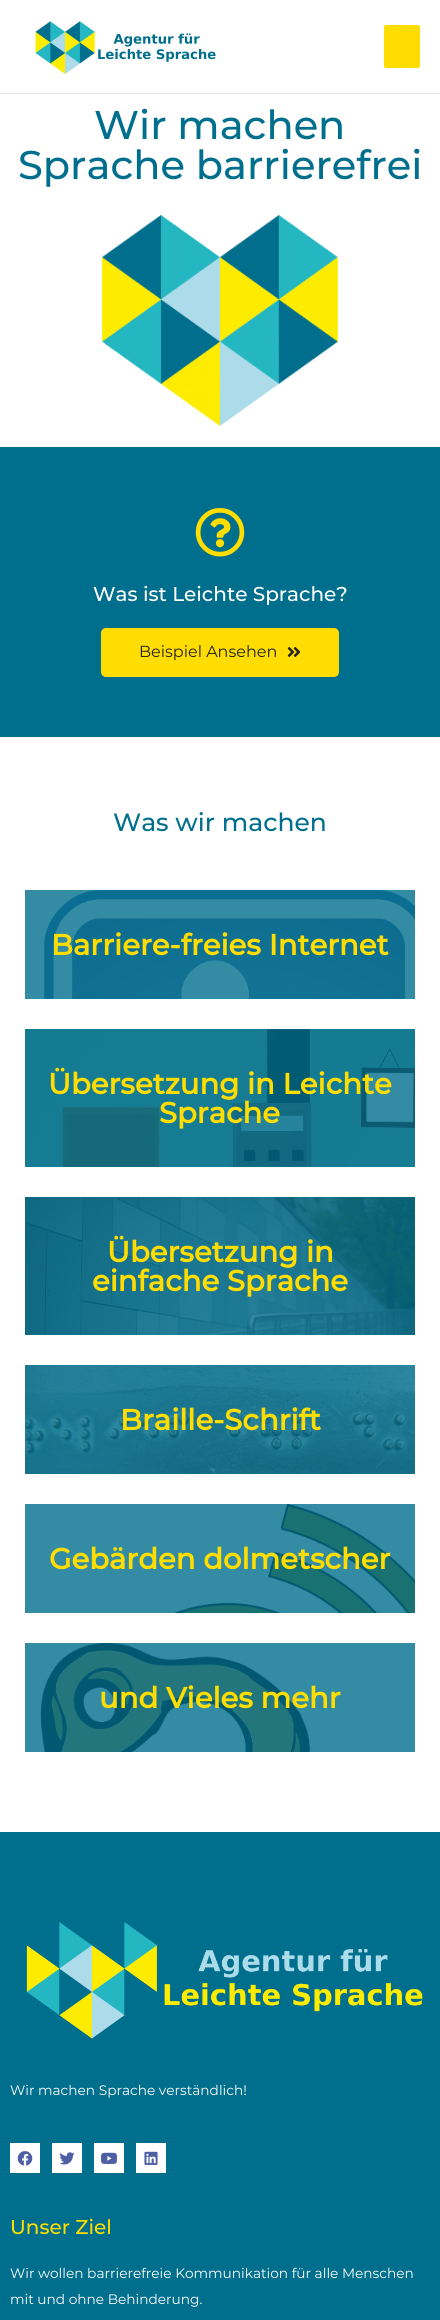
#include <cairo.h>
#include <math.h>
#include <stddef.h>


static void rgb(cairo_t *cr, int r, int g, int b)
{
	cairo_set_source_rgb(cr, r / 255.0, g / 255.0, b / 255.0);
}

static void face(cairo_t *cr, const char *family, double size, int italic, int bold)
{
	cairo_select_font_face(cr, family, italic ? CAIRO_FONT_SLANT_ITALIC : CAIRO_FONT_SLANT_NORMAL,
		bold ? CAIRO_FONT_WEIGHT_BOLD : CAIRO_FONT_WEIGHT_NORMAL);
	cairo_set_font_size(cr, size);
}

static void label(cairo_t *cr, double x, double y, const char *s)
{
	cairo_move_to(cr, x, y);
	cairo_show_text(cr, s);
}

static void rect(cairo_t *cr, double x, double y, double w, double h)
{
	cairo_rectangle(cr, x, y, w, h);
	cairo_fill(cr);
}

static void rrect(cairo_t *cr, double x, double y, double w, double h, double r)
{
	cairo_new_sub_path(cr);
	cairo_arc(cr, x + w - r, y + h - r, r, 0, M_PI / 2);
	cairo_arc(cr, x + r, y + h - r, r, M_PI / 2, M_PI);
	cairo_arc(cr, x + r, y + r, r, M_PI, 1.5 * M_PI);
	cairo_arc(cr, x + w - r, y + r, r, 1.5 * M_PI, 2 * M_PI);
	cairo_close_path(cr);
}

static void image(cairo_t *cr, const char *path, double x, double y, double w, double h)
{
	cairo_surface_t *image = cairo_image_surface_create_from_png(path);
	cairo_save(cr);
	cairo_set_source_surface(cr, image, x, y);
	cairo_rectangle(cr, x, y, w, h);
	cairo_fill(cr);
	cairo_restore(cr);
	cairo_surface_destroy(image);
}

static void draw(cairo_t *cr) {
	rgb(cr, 255, 255, 255);
	cairo_paint(cr);
	rgb(cr, 51, 140, 164);
	rect(cr, 25, 1643, 390, 109);
	rect(cr, 25, 1504, 390, 109);
	rect(cr, 25, 890, 390, 109);
	rgb(cr, 234, 234, 234);
	rect(cr, 0, 93, 440, 1);
	image(cr, "image0.png", 35, 21, 181, 53);
	rgb(cr, 255, 221, 0);
	rrect(cr, 384, 25, 36, 43, 2);
	cairo_fill(cr);
	face(cr, "Montserrat Medium", 40, 0, 0);
	rgb(cr, 0, 111, 141);
	label(cr, 94, 139, "Wir machen");
	label(cr, 18, 179, "Sprache barrierefrei");
	image(cr, "image1.png", 102, 215, 236, 211);
	rect(cr, 0, 447, 440, 290);
	image(cr, "image2.png", 195, 508, 50, 49);
	face(cr, "Montserrat Medium", 20, 0, 0);
	rgb(cr, 255, 255, 255);
	label(cr, 93, 601, "Was ist Leichte Sprache?");
	rgb(cr, 255, 221, 0);
	rrect(cr, 101, 628, 238, 49, 5);
	cairo_fill(cr);
	face(cr, "Montserrat", 16, 0, 0);
	rgb(cr, 35, 35, 35);
	label(cr, 139, 657, "Beispiel Ansehen");
	image(cr, "image3.png", 287, 647, 14, 10);
	face(cr, "Montserrat Medium", 25, 0, 0);
	rgb(cr, 0, 111, 141);
	label(cr, 113, 831, "Was wir machen");
	image(cr, "image4.png", 43, 890, 372, 109);
	face(cr, "Montserrat", 29, 0, 1);
	rgb(cr, 255, 221, 0);
	label(cr, 51, 955, "Barriere-freies Internet");
	image(cr, "image5.png", 25, 1029, 390, 138);
	label(cr, 48, 1094, "Übersetzung in Leichte");
	label(cr, 159, 1123, "Sprache");
	image(cr, "image6.png", 25, 1197, 390, 138);
	label(cr, 107, 1262, "Übersetzung in");
	label(cr, 92, 1291, "einfache Sprache");
	image(cr, "image7.png", 25, 1365, 390, 109);
	label(cr, 120, 1430, "Braille-Schrift");
	image(cr, "image8.png", 174, 1504, 241, 109);
	label(cr, 49, 1569, "Gebärden dolmetscher");
	image(cr, "image9.png", 40, 1643, 270, 109);
	label(cr, 99, 1708, "und Vieles mehr");
	rgb(cr, 0, 111, 141);
	rect(cr, 0, 1832, 440, 488);
	image(cr, "image10.png", 26, 1922, 397, 117);
	face(cr, "Montserrat", 13.7, 0, 0);
	rgb(cr, 255, 255, 255);
	label(cr, 10, 2095, "Wir machen Sprache verständlich!");
	rect(cr, 10, 2143, 30, 30);
	image(cr, "image11.png", 17, 2151, 16, 15);
	rect(cr, 52, 2143, 30, 30);
	image(cr, "image12.png", 59, 2152, 16, 13);
	rect(cr, 94, 2143, 30, 30);
	image(cr, "image13.png", 101, 2152, 16, 12);
	rect(cr, 136, 2143, 30, 30);
	image(cr, "image14.png", 144, 2151, 14, 14);
	face(cr, "Montserrat Medium", 20, 0, 0);
	rgb(cr, 255, 221, 0);
	label(cr, 10, 2234, "Unser Ziel");
	face(cr, "Montserrat", 13.7, 0, 0);
	rgb(cr, 255, 255, 255);
	label(cr, 10, 2278, "Wir wollen barrierefreie Kommunikation für alle Menschen");
	label(cr, 10, 2304, "mit und ohne Behinderung.");
}

int main(void) {
	cairo_surface_t *surface = cairo_image_surface_create(CAIRO_FORMAT_RGB24, 440, 2320);
	cairo_t *cr = cairo_create(surface);
	cairo_font_options_t *options = cairo_font_options_create();
	cairo_font_options_set_hint_metrics(options, CAIRO_HINT_METRICS_OFF);
	cairo_font_options_set_hint_style(options, CAIRO_HINT_STYLE_NONE);
	cairo_set_font_options(cr, options);
	cairo_set_miter_limit(cr, 4);
	draw(cr);
	cairo_surface_write_to_png(surface, "render.png");
	cairo_font_options_destroy(options);
	cairo_destroy(cr);
	cairo_surface_destroy(surface);
	return 0;
}
